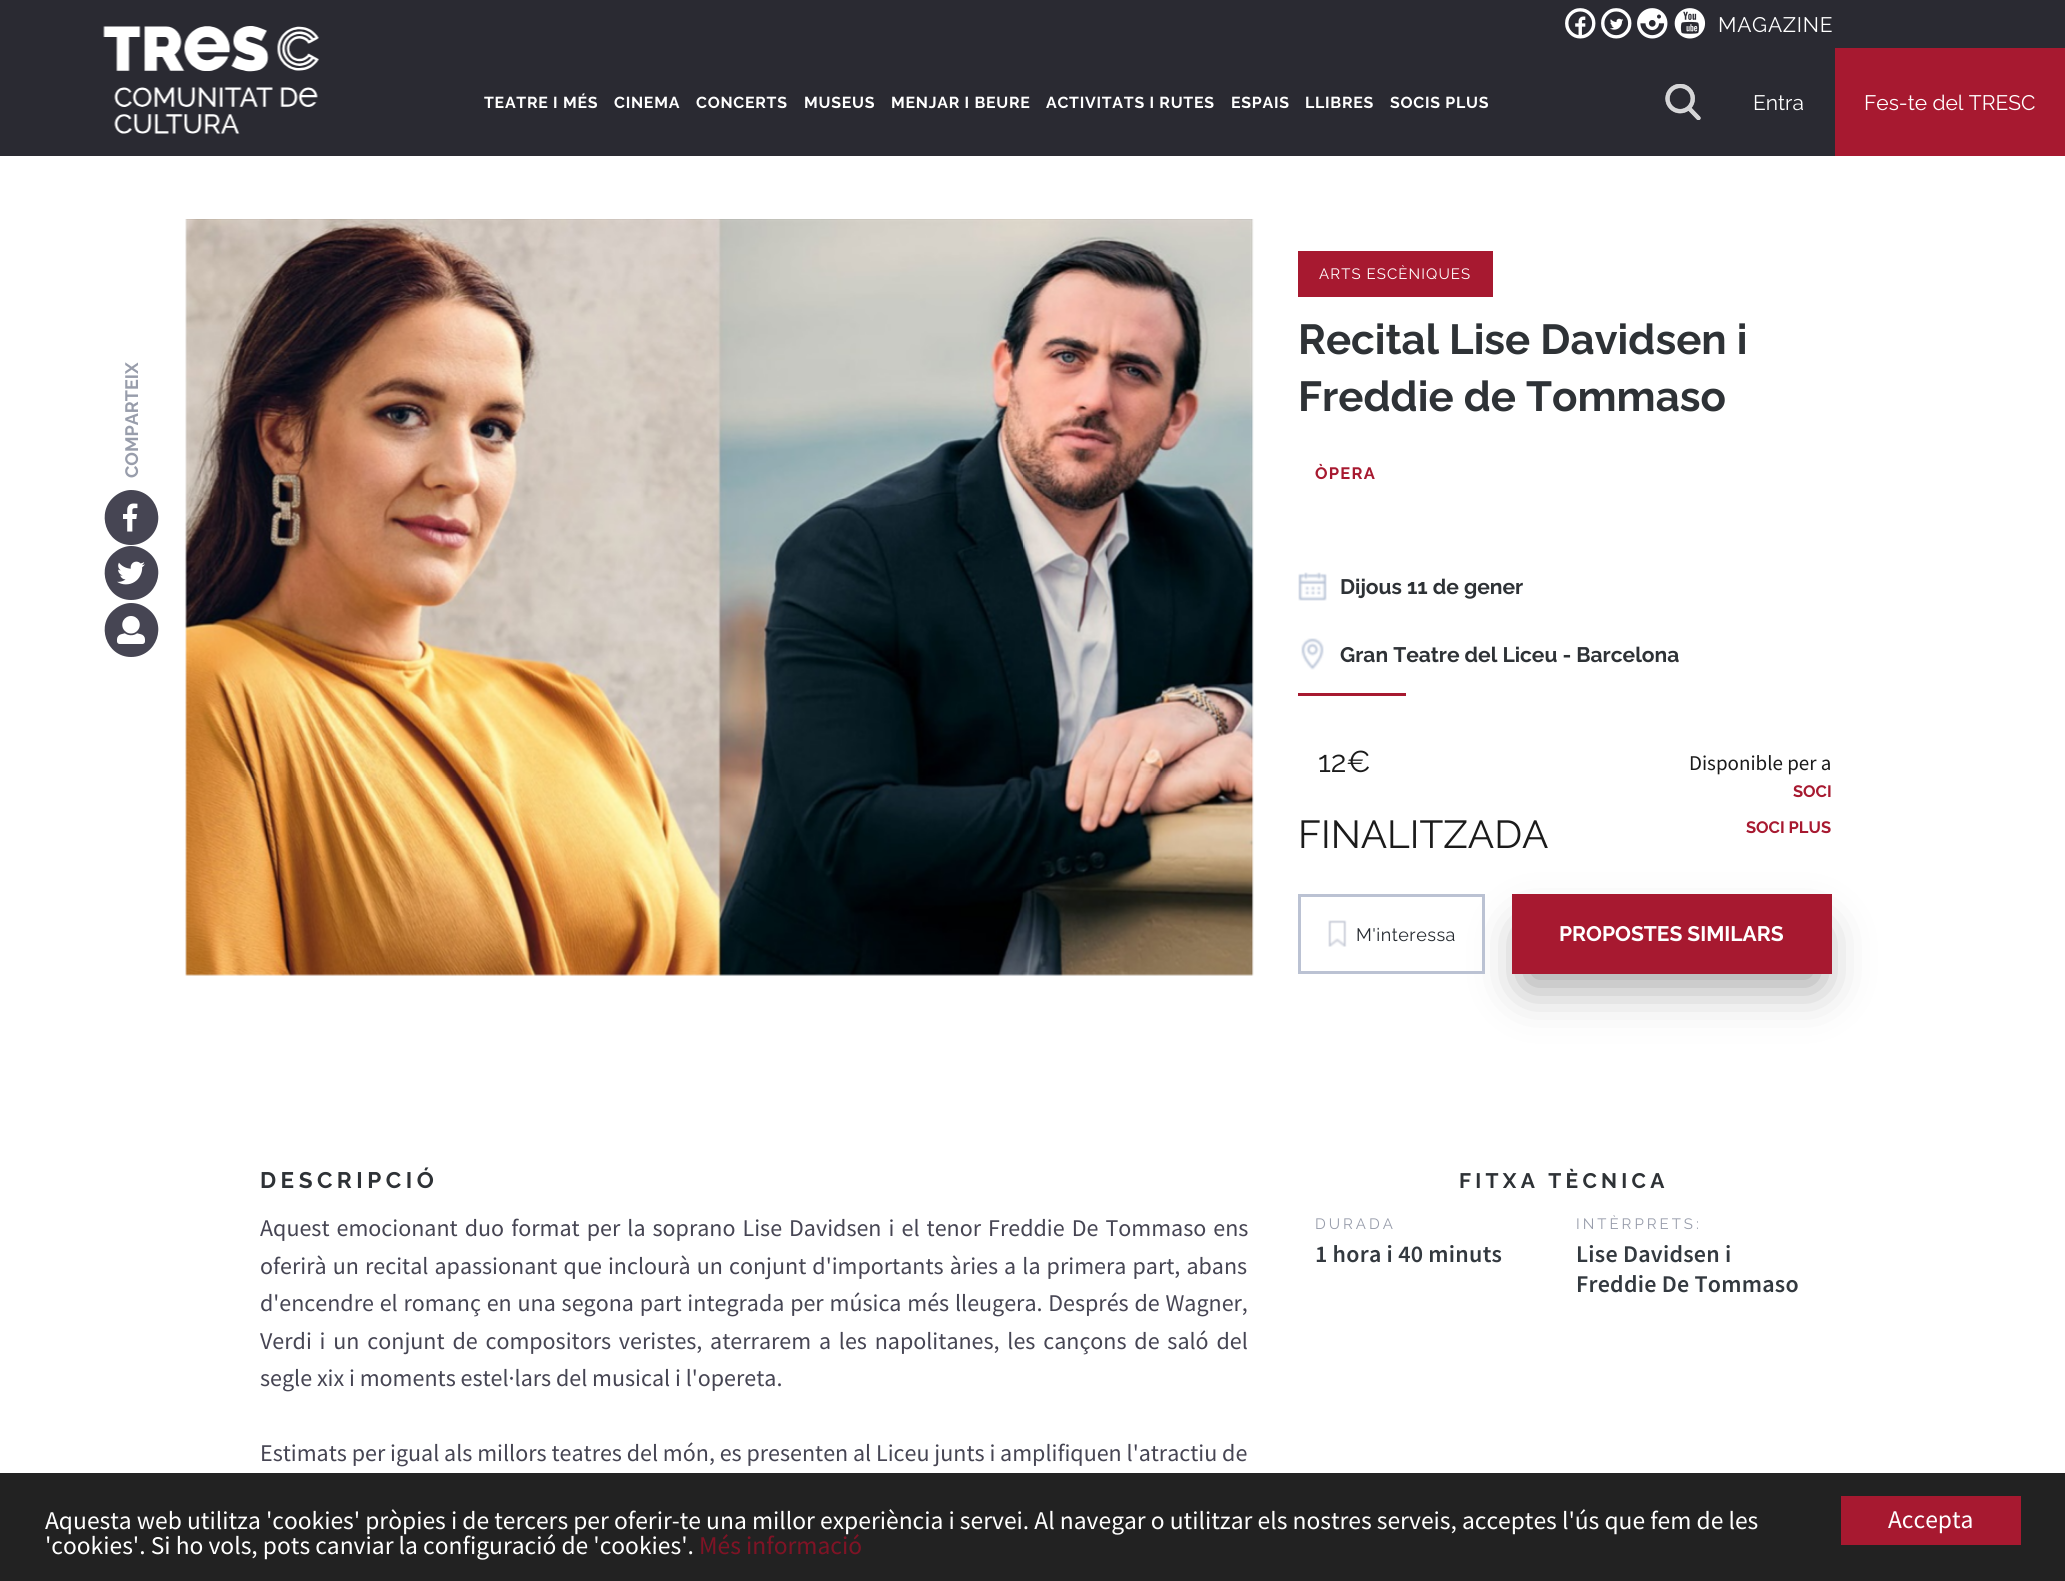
#include <cairo.h>
#include <math.h>
#include <stddef.h>


static void rgb(cairo_t *cr, int r, int g, int b)
{
	cairo_set_source_rgb(cr, r / 255.0, g / 255.0, b / 255.0);
}

static void face(cairo_t *cr, const char *family, double size, int italic, int bold)
{
	cairo_select_font_face(cr, family, italic ? CAIRO_FONT_SLANT_ITALIC : CAIRO_FONT_SLANT_NORMAL,
		bold ? CAIRO_FONT_WEIGHT_BOLD : CAIRO_FONT_WEIGHT_NORMAL);
	cairo_set_font_size(cr, size);
}

static void label(cairo_t *cr, double x, double y, const char *s)
{
	cairo_move_to(cr, x, y);
	cairo_show_text(cr, s);
}

static void tracked(cairo_t *cr, double x, double y, const char *s, double letter, double word)
{
	cairo_move_to(cr, x, y);
	while (*s) {
		char ch[5] = {0};
		int n = 0;
		do ch[n++] = *s++; while ((*s & 0xC0) == 0x80);
		cairo_show_text(cr, ch);
		cairo_rel_move_to(cr, letter + word * (*ch == ' '), 0);
	}
}

static void rect(cairo_t *cr, double x, double y, double w, double h)
{
	cairo_rectangle(cr, x, y, w, h);
	cairo_fill(cr);
}

static void rrect(cairo_t *cr, double x, double y, double w, double h, double r)
{
	cairo_new_sub_path(cr);
	cairo_arc(cr, x + w - r, y + h - r, r, 0, M_PI / 2);
	cairo_arc(cr, x + r, y + h - r, r, M_PI / 2, M_PI);
	cairo_arc(cr, x + r, y + r, r, M_PI, 1.5 * M_PI);
	cairo_arc(cr, x + w - r, y + r, r, 1.5 * M_PI, 2 * M_PI);
	cairo_close_path(cr);
}

static void soft_shadow(cairo_t *cr, double x, double y, double w, double h, double r, double blur, double alpha)
{
	cairo_push_group_with_content(cr, CAIRO_CONTENT_ALPHA);
	cairo_set_operator(cr, CAIRO_OPERATOR_SOURCE);
	for (int i = 15; i >= -15 && fmin(w, h) + blur * i / 3 > 0; i -= 2) {
		double e = blur * i / 6;
		cairo_set_source_rgba(cr, 0, 0, 0, alpha * erfc((i - 1) / 8.5) / 2);
		rrect(cr, x - e, y - e, w + 2 * e, h + 2 * e, fmax(0, fmin(r + e + blur * .6, fmin(w, h) / 2 + e)));
		cairo_fill(cr);
	}
	cairo_pattern_t *soft = cairo_pop_group(cr);
	cairo_mask(cr, soft);
	cairo_pattern_destroy(soft);
}

static void image(cairo_t *cr, const char *path, double x, double y, double w, double h)
{
	cairo_surface_t *image = cairo_image_surface_create_from_png(path);
	cairo_save(cr);
	cairo_set_source_surface(cr, image, x, y);
	cairo_rectangle(cr, x, y, w, h);
	cairo_fill(cr);
	cairo_restore(cr);
	cairo_surface_destroy(image);
}

static void draw(cairo_t *cr) {
	rgb(cr, 255, 255, 255);
	cairo_paint(cr);
	rgb(cr, 42, 42, 50);
	rect(cr, 0, 0, 2065, 156);
	image(cr, "image0.png", 1565, 8, 31, 31);
	image(cr, "image1.png", 1601, 8, 31, 31);
	image(cr, "image2.png", 1637, 8, 31, 31);
	image(cr, "image3.png", 1674, 8, 32, 31);
	face(cr, "Raleway", 21, 0, 0);
	rgb(cr, 255, 255, 255);
	tracked(cr, 1718, 32, "MAGAZINE", 0.75, 0);
	image(cr, "image4.png", 103, 26, 217, 108);
	face(cr, "Raleway", 15.9, 0, 1);
	tracked(cr, 484, 108, "TEATRE I MÉS", 0.75, 0);
	tracked(cr, 614, 108, "CINEMA", 0.75, 0);
	tracked(cr, 696, 108, "CONCERTS", 0.75, 0);
	tracked(cr, 804, 108, "MUSEUS", 0.75, 0);
	tracked(cr, 891, 108, "MENJAR I BEURE", 0.75, 0);
	tracked(cr, 1046, 108, "ACTIVITATS I RUTES", 0.75, 0);
	tracked(cr, 1231, 108, "ESPAIS", 0.75, 0);
	tracked(cr, 1305, 108, "LLIBRES", 0.75, 0);
	tracked(cr, 1390, 108, "SOCIS PLUS", 0.75, 0);
	image(cr, "image5.png", 1665, 84, 36, 36);
	face(cr, "Raleway", 21, 0, 0);
	label(cr, 1753, 110, "Entra");
	rgb(cr, 167, 25, 48);
	rect(cr, 1835, 48, 230, 108);
	rgb(cr, 255, 255, 255);
	label(cr, 1864, 110, "Fes-te del TRESC");
	face(cr, "Raleway", 18, 0, 1);
	rgb(cr, 152, 157, 171);
	cairo_save(cr);
	cairo_translate(cr, 138, 478);
	cairo_rotate(cr, -90 * M_PI / 180);
	label(cr, 0, 0, "COMPARTEIX");
	cairo_restore(cr);
	rgb(cr, 70, 69, 83);
	cairo_new_path(cr);
	cairo_move_to(cr, 131, 490);
	cairo_curve_to(cr, 126, 490, 120, 492, 115, 496);
	cairo_curve_to(cr, 95, 512, 106, 545, 131, 545);
	cairo_curve_to(cr, 137, 545, 143, 543, 148, 539);
	cairo_curve_to(cr, 168, 523, 157, 490, 131, 490);
	cairo_close_path(cr);
	cairo_fill(cr);
	image(cr, "image6.png", 123, 503, 15, 29);
	cairo_new_path(cr);
	cairo_move_to(cr, 131, 546);
	cairo_curve_to(cr, 126, 546, 120, 548, 115, 552);
	cairo_curve_to(cr, 95, 567, 106, 600, 131, 600);
	cairo_curve_to(cr, 157, 600, 168, 567, 148, 552);
	cairo_curve_to(cr, 143, 548, 137, 546, 131, 546);
	cairo_close_path(cr);
	cairo_fill(cr);
	image(cr, "image7.png", 117, 561, 28, 24);
	cairo_new_path(cr);
	cairo_move_to(cr, 131, 603);
	cairo_curve_to(cr, 126, 603, 120, 605, 115, 609);
	cairo_curve_to(cr, 95, 624, 106, 657, 131, 657);
	cairo_curve_to(cr, 157, 657, 168, 624, 148, 609);
	cairo_curve_to(cr, 143, 605, 137, 603, 131, 603);
	cairo_close_path(cr);
	cairo_fill(cr);
	image(cr, "image8.png", 117, 616, 28, 28);
	image(cr, "image9.png", 185, 219, 1069, 757);
	rgb(cr, 167, 25, 48);
	rect(cr, 1298, 251, 195, 46);
	face(cr, "Raleway", 15, 0, 0);
	rgb(cr, 255, 255, 255);
	tracked(cr, 1319, 279, "ARTS ESCÈNIQUES", 1.1, 0);
	face(cr, "Raleway", 42, 0, 1);
	rgb(cr, 46, 50, 54);
	label(cr, 1298, 354, "Recital Lise Davidsen i");
	label(cr, 1298, 411, "Freddie de Tommaso");
	face(cr, "Raleway", 16.5, 0, 1);
	rgb(cr, 167, 25, 48);
	tracked(cr, 1315, 479, "ÒPERA", 1.25, 0);
	image(cr, "image10.png", 1298, 572, 29, 29);
	face(cr, "Raleway", 21, 0, 1);
	rgb(cr, 46, 50, 54);
	label(cr, 1340, 594, "Dijous 11 de gener");
	image(cr, "image11.png", 1301, 638, 23, 32);
	label(cr, 1340, 662, "Gran Teatre del Liceu - Barcelona");
	rgb(cr, 167, 25, 48);
	rect(cr, 1298, 693, 108, 3);
	face(cr, "Raleway", 30, 0, 0);
	rgb(cr, 27, 27, 27);
	label(cr, 1318, 772, "12€");
	face(cr, "Raleway", 39, 0, 0);
	label(cr, 1298, 848, "FINALITZADA");
	face(cr, "Source Sans Pro", 21, 0, 0);
	label(cr, 1689, 770, "Disponible per a");
	face(cr, "Raleway", 16.5, 0, 1);
	rgb(cr, 167, 25, 48);
	label(cr, 1793, 797, "SOCI");
	label(cr, 1746, 833, "SOCI PLUS");
	rgb(cr, 153, 153, 153);
	soft_shadow(cr, 1526, 932, 292, 52, 0, 24, 1);
	cairo_rectangle(cr, 1299.5, 895.5, 184, 77);
	rgb(cr, 187, 194, 211);
	cairo_set_line_width(cr, 3);
	cairo_stroke(cr);
	image(cr, "image12.png", 1328, 920, 19, 27);
	face(cr, "Raleway", 18, 0, 0);
	rgb(cr, 37, 42, 48);
	tracked(cr, 1356, 941, "M'interessa", 0.5, 0);
	rgb(cr, 167, 25, 48);
	rect(cr, 1512, 894, 320, 80);
	face(cr, "Raleway", 21, 0, 1);
	rgb(cr, 255, 255, 255);
	label(cr, 1559, 941, "PROPOSTES SIMILARS");
	face(cr, "Raleway", 22.5, 0, 1);
	rgb(cr, 46, 50, 54);
	tracked(cr, 260, 1188, "DESCRIPCIÓ", 4.5, 0);
	face(cr, "Source Sans Pro", 24, 0, 0);
	rgb(cr, 70, 69, 83);
	tracked(cr, 260, 1236, "Aquest emocionant duo format per la soprano Lise Davidsen i el tenor Freddie De Tommaso ens", 0, 2.25);
	tracked(cr, 260, 1274, "oferirà un recital apassionant que inclourà un conjunt d'importants àries a la primera part, abans", 0, 1.3);
	tracked(cr, 260, 1311, "d'encendre el romanç en una segona part integrada per música més lleugera. Després de Wagner,", 0, 1);
	tracked(cr, 260, 1349, "Verdi i un conjunt de compositors veristes, aterrarem a les napolitanes, les cançons de saló del", 0, 3);
	label(cr, 260, 1386, "segle xix i moments estel·lars del musical i l'opereta.");
	label(cr, 260, 1461, "Estimats per igual als millors teatres del món, es presenten al Liceu junts i amplifiquen l'atractiu de");
	face(cr, "Raleway", 21, 0, 1);
	rgb(cr, 46, 50, 54);
	tracked(cr, 1459, 1188, "FITXA TÈCNICA", 4.25, 0);
	face(cr, "Raleway", 15, 0, 0);
	rgb(cr, 152, 157, 171);
	tracked(cr, 1315, 1229, "DURADA", 3, 0);
	face(cr, "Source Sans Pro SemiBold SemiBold", 24, 0, 0);
	rgb(cr, 51, 57, 63);
	tracked(cr, 1315, 1262, "1 hora i 40 minuts", 0.25, 0);
	face(cr, "Raleway", 15, 0, 0);
	rgb(cr, 152, 157, 171);
	tracked(cr, 1576, 1229, "INTÈRPRETS:", 3, 0);
	face(cr, "Source Sans Pro SemiBold SemiBold", 24, 0, 0);
	rgb(cr, 51, 57, 63);
	tracked(cr, 1576, 1262, "Lise Davidsen i", 0.25, 0);
	tracked(cr, 1576, 1292, "Freddie De Tommaso", 0.25, 0);
	rgb(cr, 34, 34, 34);
	rect(cr, 0, 1473, 2065, 108);
	face(cr, "Source Sans Pro", 25.5, 0, 0);
	rgb(cr, 255, 255, 255);
	label(cr, 45, 1529, "Aquesta web utilitza 'cookies' pròpies i de tercers per oferir-te una millor experiència i servei. Al navegar o utilitzar els nostres serveis, acceptes l'ús que fem de les");
	label(cr, 45, 1554, "'cookies'. Si ho vols, pots canviar la configuració de 'cookies'.");
	rgb(cr, 127, 19, 37);
	label(cr, 699, 1554, "Més informació");
	rgb(cr, 167, 25, 48);
	rect(cr, 1841, 1496, 180, 49);
	rgb(cr, 255, 255, 255);
	label(cr, 1888, 1528, "Accepta");
}

int main(void) {
	cairo_surface_t *surface = cairo_image_surface_create(CAIRO_FORMAT_RGB24, 2065, 1581);
	cairo_t *cr = cairo_create(surface);
	cairo_font_options_t *options = cairo_font_options_create();
	cairo_font_options_set_hint_metrics(options, CAIRO_HINT_METRICS_OFF);
	cairo_font_options_set_hint_style(options, CAIRO_HINT_STYLE_NONE);
	cairo_set_font_options(cr, options);
	cairo_set_miter_limit(cr, 4);
	draw(cr);
	cairo_surface_write_to_png(surface, "render.png");
	cairo_font_options_destroy(options);
	cairo_destroy(cr);
	cairo_surface_destroy(surface);
	return 0;
}
